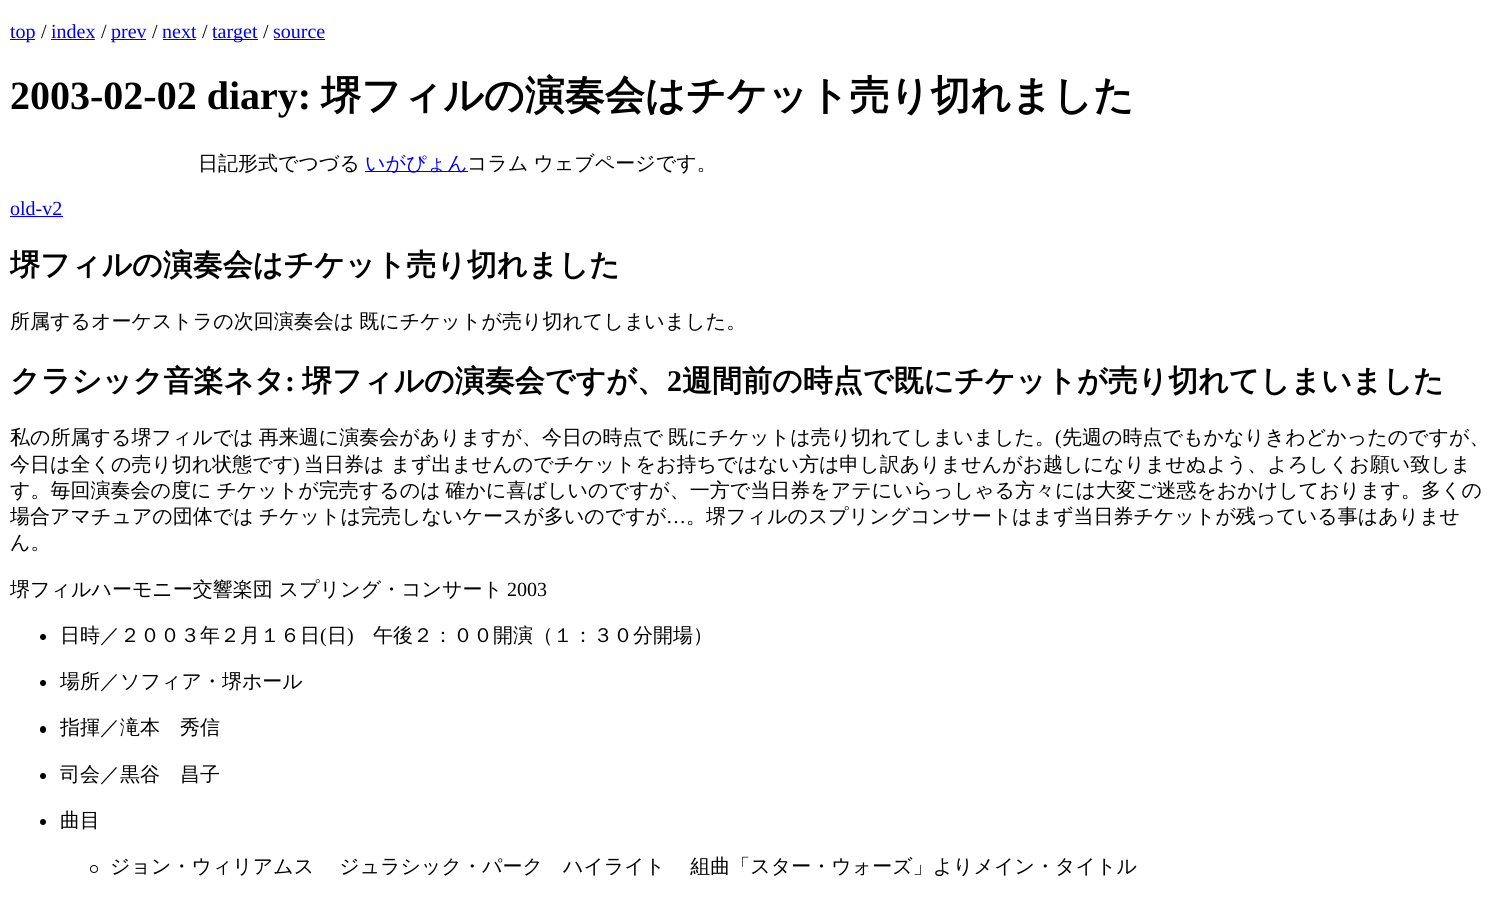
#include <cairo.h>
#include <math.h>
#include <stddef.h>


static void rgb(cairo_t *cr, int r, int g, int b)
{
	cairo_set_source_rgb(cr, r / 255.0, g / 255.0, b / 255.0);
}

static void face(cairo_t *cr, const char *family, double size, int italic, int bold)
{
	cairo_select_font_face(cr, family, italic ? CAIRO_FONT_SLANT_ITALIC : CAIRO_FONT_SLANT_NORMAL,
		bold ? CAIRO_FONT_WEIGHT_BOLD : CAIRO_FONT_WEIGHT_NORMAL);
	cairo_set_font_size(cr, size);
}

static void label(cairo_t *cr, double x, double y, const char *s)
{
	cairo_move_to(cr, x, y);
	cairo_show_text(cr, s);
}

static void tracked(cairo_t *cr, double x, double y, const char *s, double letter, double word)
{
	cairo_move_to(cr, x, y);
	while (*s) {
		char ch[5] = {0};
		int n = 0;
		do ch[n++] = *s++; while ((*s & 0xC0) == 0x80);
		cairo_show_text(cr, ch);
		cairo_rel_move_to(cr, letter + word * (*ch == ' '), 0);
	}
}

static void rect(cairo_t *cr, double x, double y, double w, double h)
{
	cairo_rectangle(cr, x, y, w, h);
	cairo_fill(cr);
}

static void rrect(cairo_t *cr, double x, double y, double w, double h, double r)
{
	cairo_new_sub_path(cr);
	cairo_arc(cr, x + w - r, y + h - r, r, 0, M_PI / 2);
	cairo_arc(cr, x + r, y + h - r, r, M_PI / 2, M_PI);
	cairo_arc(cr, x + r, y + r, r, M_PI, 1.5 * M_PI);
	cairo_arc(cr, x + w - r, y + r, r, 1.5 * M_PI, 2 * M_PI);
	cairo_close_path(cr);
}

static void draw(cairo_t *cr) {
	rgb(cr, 255, 255, 255);
	cairo_paint(cr);
	rgb(cr, 0, 0, 238);
	rect(cr, 10, 39, 25, 1);
	face(cr, "Liberation Serif", 20, 0, 0);
	label(cr, 10, 38, "top");
	rgb(cr, 0, 0, 0);
	label(cr, 41, 38, "/");
	rgb(cr, 0, 0, 238);
	label(cr, 51, 38, "index");
	rect(cr, 51, 39, 44, 1);
	rgb(cr, 0, 0, 0);
	label(cr, 101, 38, "/");
	rgb(cr, 0, 0, 238);
	rect(cr, 111, 39, 35, 1);
	label(cr, 111, 38, "prev");
	rgb(cr, 0, 0, 0);
	label(cr, 152, 38, "/");
	rgb(cr, 0, 0, 238);
	label(cr, 162, 38, "next");
	rect(cr, 163, 39, 33, 1);
	rgb(cr, 0, 0, 0);
	label(cr, 202, 38, "/");
	rgb(cr, 0, 0, 238);
	rect(cr, 213, 39, 45, 1);
	label(cr, 212, 38, "target");
	rgb(cr, 0, 0, 0);
	label(cr, 263, 38, "/");
	rgb(cr, 0, 0, 238);
	label(cr, 273, 38, "source");
	rect(cr, 274, 39, 51, 1);
	face(cr, "Liberation Serif", 40, 0, 1);
	rgb(cr, 0, 0, 0);
	label(cr, 10, 109, "2003-02-02 diary:");
	face(cr, "WenQuanYi Zen Hei", 40, 0, 1);
	label(cr, 321, 109, "堺フィルの演奏会はチケット売り切れました");
	face(cr, "WenQuanYi Zen Hei Medium", 20, 0, 0);
	label(cr, 198, 170, "日記形式でつづる");
	rgb(cr, 0, 0, 238);
	rect(cr, 365, 171, 103, 1);
	label(cr, 365, 170, "いがぴょん");
	rgb(cr, 0, 0, 0);
	tracked(cr, 467, 170, "コラム ウェブページです。", 0, -1);
	face(cr, "Liberation Serif", 20, 0, 0);
	rgb(cr, 0, 0, 238);
	label(cr, 10, 215, "old-v2");
	rect(cr, 10, 216, 53, 1);
	face(cr, "WenQuanYi Zen Hei", 30, 0, 1);
	rgb(cr, 0, 0, 0);
	label(cr, 10, 275, "堺フィルの演奏会はチケット売り切れました");
	face(cr, "WenQuanYi Zen Hei Medium", 20, 0, 0);
	tracked(cr, 10, 328, "所属するオーケストラの次回演奏会は 既にチケットが売り切れてしまいました。", 0, -1);
	face(cr, "WenQuanYi Zen Hei", 30, 0, 1);
	label(cr, 10, 391, "クラシック音楽ネタ");
	face(cr, "Liberation Serif", 30, 0, 1);
	label(cr, 285, 391, ":");
	face(cr, "WenQuanYi Zen Hei", 30, 0, 1);
	label(cr, 302, 391, "堺フィルの演奏会ですが、");
	face(cr, "Liberation Serif", 30, 0, 1);
	label(cr, 667, 391, "2");
	face(cr, "WenQuanYi Zen Hei", 30, 0, 1);
	label(cr, 682, 391, "週間前の時点で既にチケットが売り切れてしまいました");
	face(cr, "WenQuanYi Zen Hei Medium", 20, 0, 0);
	tracked(cr, 10, 444, "私の所属する堺フィルでは 再来週に演奏会がありますが、今日の時点で 既にチケットは売り切れてしまいました。", 0, -1);
	face(cr, "Liberation Serif", 20, 0, 0);
	label(cr, 1055, 444, "(");
	face(cr, "WenQuanYi Zen Hei Medium", 20, 0, 0);
	label(cr, 1062, 444, "先週の時点でもかなりきわどかったのですが、");
	label(cr, 10, 471, "今日は全くの売り切れ状態です");
	face(cr, "Liberation Serif", 20, 0, 0);
	label(cr, 293, 471, ")");
	face(cr, "WenQuanYi Zen Hei Medium", 20, 0, 0);
	label(cr, 304, 471, "当日券は まず出ませんのでチケットをお持ちではない方は申し訳ありませんがお越しになりませぬよう、よろしくお願い致しま");
	tracked(cr, 10, 497, "す。毎回演奏会の度に チケットが完売するのは 確かに喜ばしいのですが、一方で当日券をアテにいらっしゃる方々には大変ご迷惑をおかけしております。多くの", 0, -1);
	tracked(cr, 10, 523, "場合アマチュアの団体では チケットは完売しないケースが多いのですが", 0, -1);
	face(cr, "Liberation Serif", 20, 0, 0);
	label(cr, 666, 523, "…");
	face(cr, "WenQuanYi Zen Hei Medium", 20, 0, 0);
	label(cr, 686, 523, "。堺フィルのスプリングコンサートはまず当日券チケットが残っている事はありませ");
	label(cr, 10, 549, "ん。");
	label(cr, 10, 596, "堺フィルハーモニー交響楽団 スプリング・コンサート");
	face(cr, "Liberation Serif", 20, 0, 0);
	label(cr, 507, 596, "2003");
	cairo_new_path(cr);
	cairo_arc(cr, 43, 637, 3, 0, 2 * M_PI);
	cairo_fill(cr);
	face(cr, "WenQuanYi Zen Hei Medium", 20, 0, 0);
	label(cr, 60, 642, "日時／２００３年２月１６日");
	face(cr, "Liberation Serif", 20, 0, 0);
	label(cr, 320, 642, "(");
	face(cr, "WenQuanYi Zen Hei Medium", 20, 0, 0);
	label(cr, 327, 642, "日");
	face(cr, "Liberation Serif", 20, 0, 0);
	label(cr, 347, 642, ")");
	face(cr, "WenQuanYi Zen Hei Medium", 20, 0, 0);
	label(cr, 373, 642, "午後２：００開演（１：３０分開場）");
	cairo_new_path(cr);
	cairo_arc(cr, 43, 683, 3, 0, 2 * M_PI);
	cairo_fill(cr);
	label(cr, 60, 688, "場所／ソフィア・堺ホール");
	rrect(cr, 40, 726, 6, 7, 3);
	cairo_fill(cr);
	label(cr, 60, 734, "指揮／滝本　秀信");
	cairo_new_path(cr);
	cairo_arc(cr, 43, 776, 3, 0, 2 * M_PI);
	cairo_fill(cr);
	label(cr, 60, 781, "司会／黒谷　昌子");
	cairo_new_path(cr);
	cairo_arc(cr, 43, 822, 3, 0, 2 * M_PI);
	cairo_fill(cr);
	label(cr, 60, 827, "曲目");
	cairo_new_path(cr);
	cairo_arc(cr, 94, 869, 3.5, 0, 2 * M_PI);
	cairo_set_line_width(cr, 1);
	cairo_stroke(cr);
	tracked(cr, 110, 873, "ジョン・ウィリアムス 　ジュラシック・パーク　ハイライト 　組曲「スター・ウォーズ」よりメイン・タイトル", 0, -1);
}

int main(void) {
	cairo_surface_t *surface = cairo_image_surface_create(CAIRO_FORMAT_RGB24, 1508, 906);
	cairo_t *cr = cairo_create(surface);
	cairo_font_options_t *options = cairo_font_options_create();
	cairo_font_options_set_hint_metrics(options, CAIRO_HINT_METRICS_OFF);
	cairo_font_options_set_hint_style(options, CAIRO_HINT_STYLE_NONE);
	cairo_set_font_options(cr, options);
	cairo_set_miter_limit(cr, 4);
	draw(cr);
	cairo_surface_write_to_png(surface, "render.png");
	cairo_font_options_destroy(options);
	cairo_destroy(cr);
	cairo_surface_destroy(surface);
	return 0;
}
